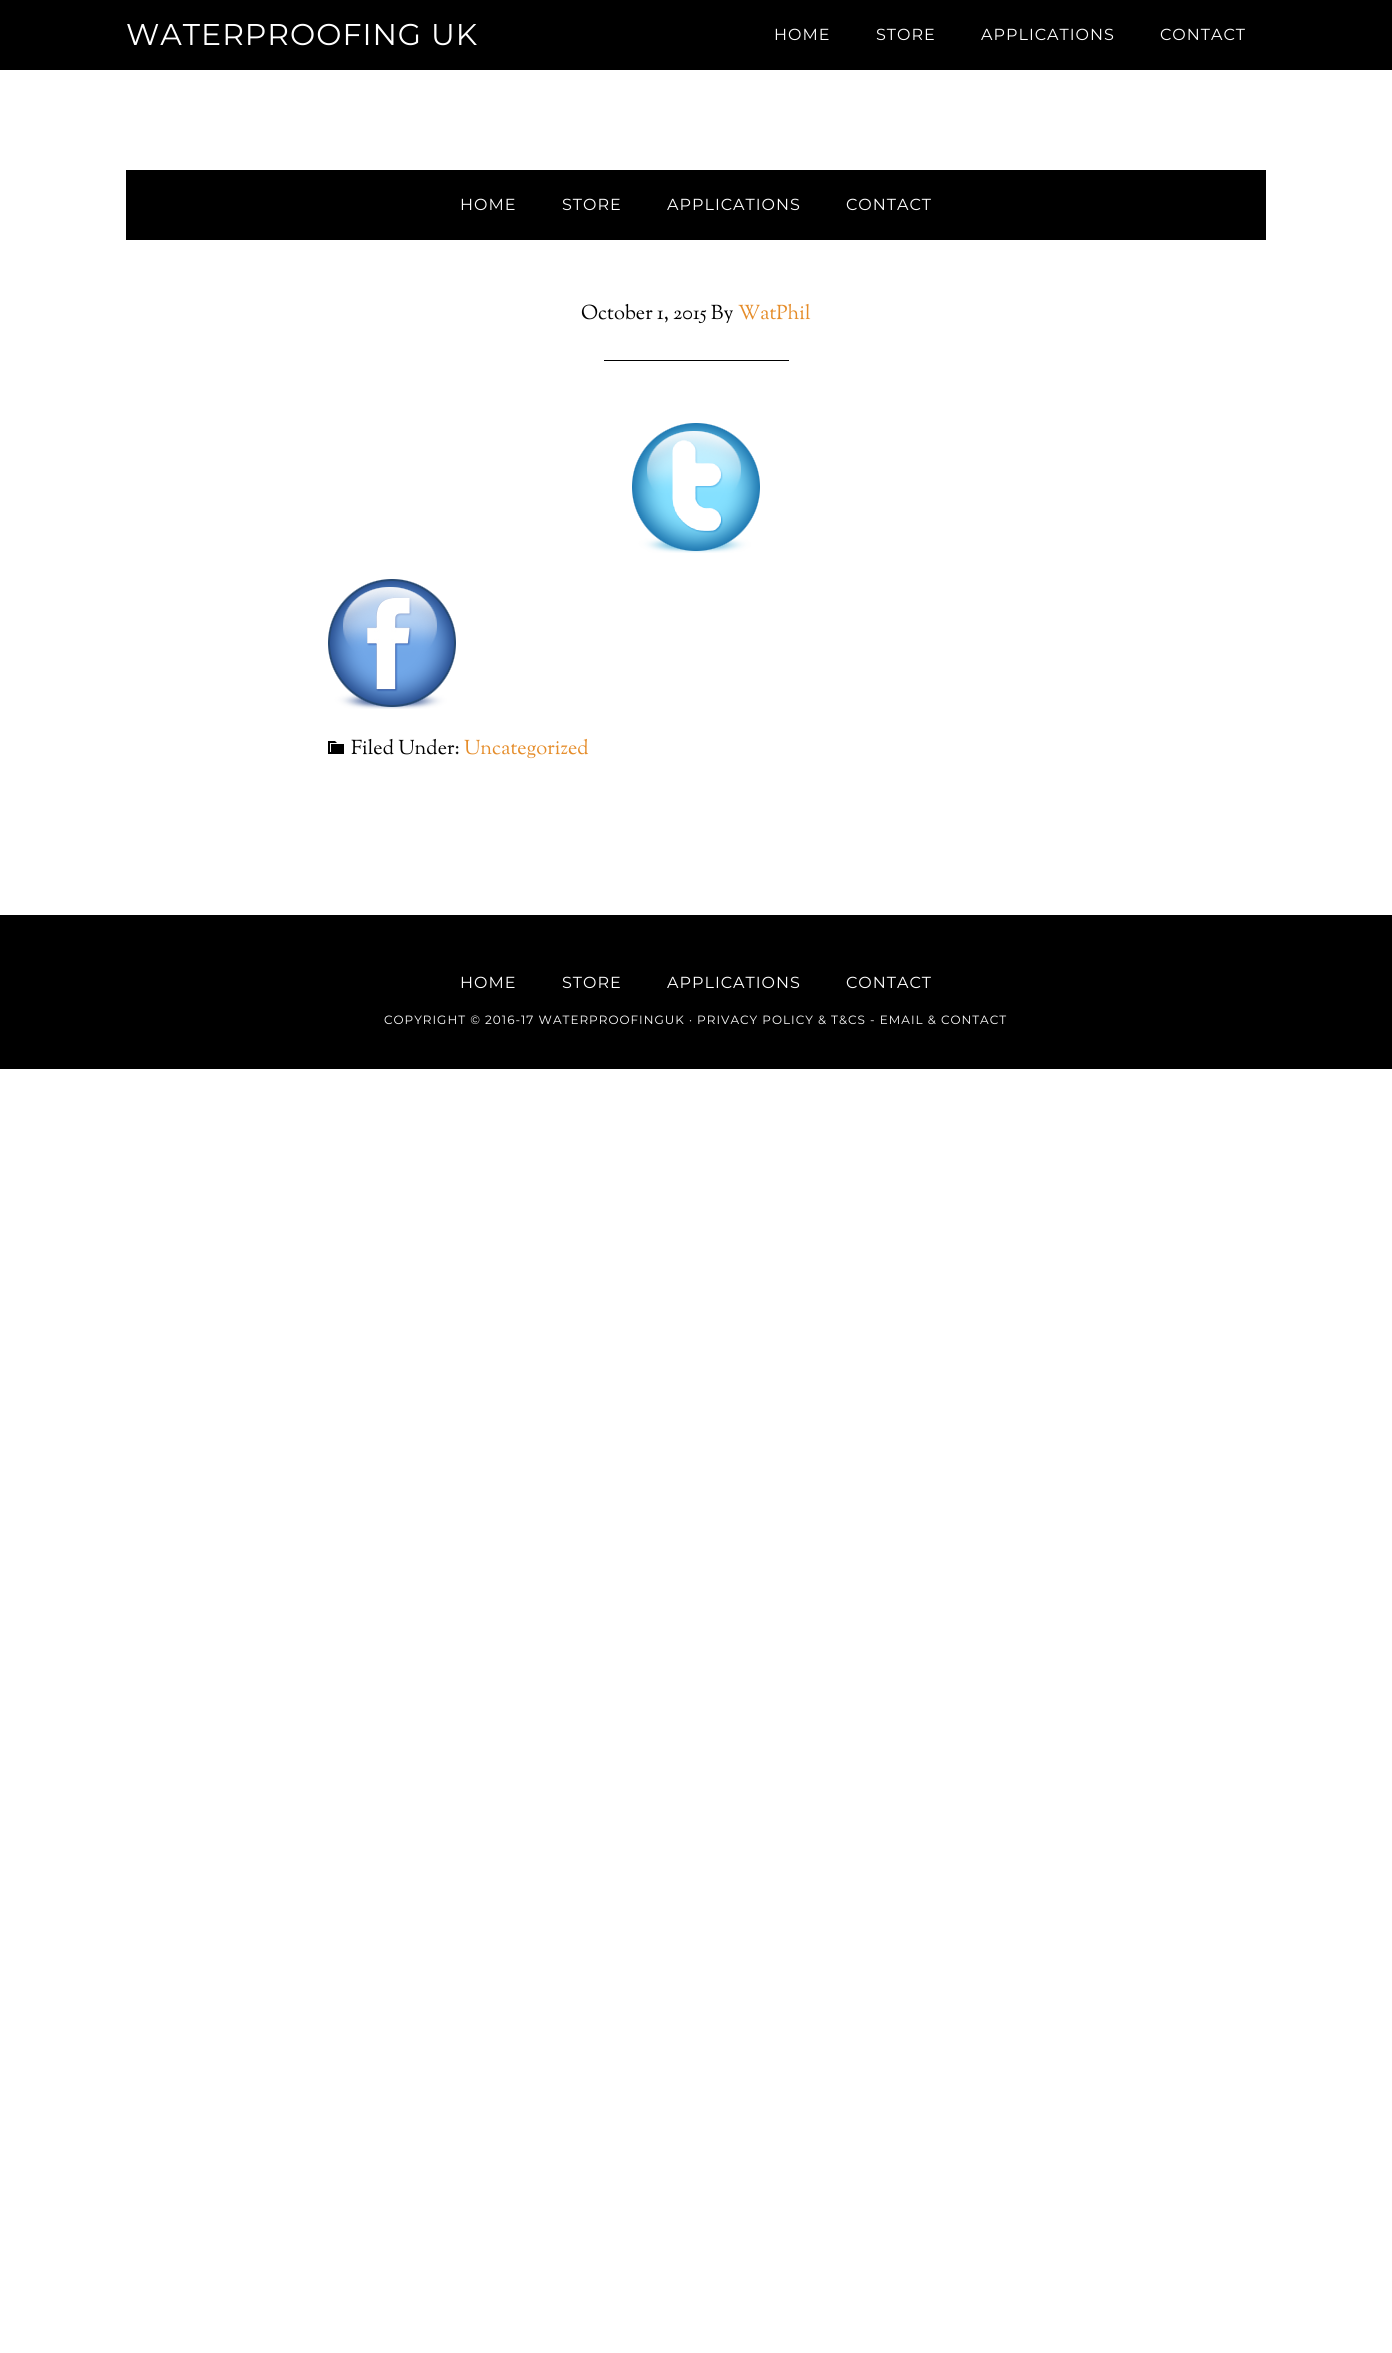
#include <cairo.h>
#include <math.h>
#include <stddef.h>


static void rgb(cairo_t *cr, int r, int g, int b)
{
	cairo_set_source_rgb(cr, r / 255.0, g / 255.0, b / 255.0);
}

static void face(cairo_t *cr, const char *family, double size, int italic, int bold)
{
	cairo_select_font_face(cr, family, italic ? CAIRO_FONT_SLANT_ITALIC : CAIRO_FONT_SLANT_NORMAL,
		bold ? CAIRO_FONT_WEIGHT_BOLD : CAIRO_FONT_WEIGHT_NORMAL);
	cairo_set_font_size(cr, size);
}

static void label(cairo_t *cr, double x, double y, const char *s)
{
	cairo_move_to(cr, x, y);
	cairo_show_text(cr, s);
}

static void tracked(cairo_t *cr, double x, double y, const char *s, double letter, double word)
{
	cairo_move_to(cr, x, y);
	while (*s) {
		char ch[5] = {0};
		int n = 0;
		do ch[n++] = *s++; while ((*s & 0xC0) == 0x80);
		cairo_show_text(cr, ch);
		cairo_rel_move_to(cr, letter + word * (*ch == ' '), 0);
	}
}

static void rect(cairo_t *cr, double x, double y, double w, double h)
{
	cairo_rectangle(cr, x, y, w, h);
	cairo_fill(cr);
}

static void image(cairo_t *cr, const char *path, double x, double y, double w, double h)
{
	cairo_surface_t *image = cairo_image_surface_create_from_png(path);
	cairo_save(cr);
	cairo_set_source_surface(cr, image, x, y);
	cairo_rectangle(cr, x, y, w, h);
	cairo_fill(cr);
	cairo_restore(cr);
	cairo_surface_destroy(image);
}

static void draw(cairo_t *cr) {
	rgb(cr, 255, 255, 255);
	cairo_paint(cr);
	rgb(cr, 0, 0, 0);
	rect(cr, 0, 0, 1392, 70);
	face(cr, "Montserrat Thin", 30, 0, 0);
	rgb(cr, 255, 255, 255);
	tracked(cr, 126, 45, "WATERPROOFING UK", 1, 0);
	face(cr, "Montserrat Thin", 16, 0, 0);
	tracked(cr, 774, 40, "HOME", 1, 0);
	tracked(cr, 876, 40, "STORE", 1, 0);
	tracked(cr, 981, 40, "APPLICATIONS", 1, 0);
	tracked(cr, 1160, 40, "CONTACT", 1, 0);
	rgb(cr, 0, 0, 0);
	rect(cr, 126, 170, 1140, 70);
	rgb(cr, 255, 255, 255);
	tracked(cr, 460, 210, "HOME", 1, 0);
	tracked(cr, 562, 210, "STORE", 1, 0);
	tracked(cr, 667, 210, "APPLICATIONS", 1, 0);
	tracked(cr, 846, 210, "CONTACT", 1, 0);
	face(cr, "Sorts Mill Goudy", 20, 0, 0);
	rgb(cr, 0, 0, 0);
	label(cr, 581, 319, "October 1, 2015 By");
	rgb(cr, 229, 140, 41);
	label(cr, 738, 319, "WatPhil");
	rgb(cr, 0, 0, 0);
	rect(cr, 604, 360, 185, 1);
	image(cr, "image0.png", 632, 423, 128, 130);
	image(cr, "image1.png", 328, 579, 128, 130);
	image(cr, "image2.png", 328, 741, 16, 13);
	label(cr, 351, 754, "Filed Under:");
	rgb(cr, 229, 140, 41);
	label(cr, 464, 754, "Uncategorized");
	rgb(cr, 0, 0, 0);
	rect(cr, 0, 915, 1392, 154);
	face(cr, "Montserrat Thin", 16, 0, 0);
	rgb(cr, 255, 255, 255);
	tracked(cr, 460, 988, "HOME", 1, 0);
	tracked(cr, 562, 988, "STORE", 1, 0);
	tracked(cr, 667, 988, "APPLICATIONS", 1, 0);
	tracked(cr, 846, 988, "CONTACT", 1, 0);
	face(cr, "Montserrat Thin", 12, 0, 0);
	tracked(cr, 384, 1024, "COPYRIGHT © 2016-17 WATERPROOFINGUK · PRIVACY POLICY & T&CS - EMAIL & CONTACT", 1, 0);
}

int main(void) {
	cairo_surface_t *surface = cairo_image_surface_create(CAIRO_FORMAT_RGB24, 1392, 2353);
	cairo_t *cr = cairo_create(surface);
	cairo_font_options_t *options = cairo_font_options_create();
	cairo_font_options_set_hint_metrics(options, CAIRO_HINT_METRICS_OFF);
	cairo_font_options_set_hint_style(options, CAIRO_HINT_STYLE_NONE);
	cairo_set_font_options(cr, options);
	cairo_set_miter_limit(cr, 4);
	draw(cr);
	cairo_surface_write_to_png(surface, "render.png");
	cairo_font_options_destroy(options);
	cairo_destroy(cr);
	cairo_surface_destroy(surface);
	return 0;
}
